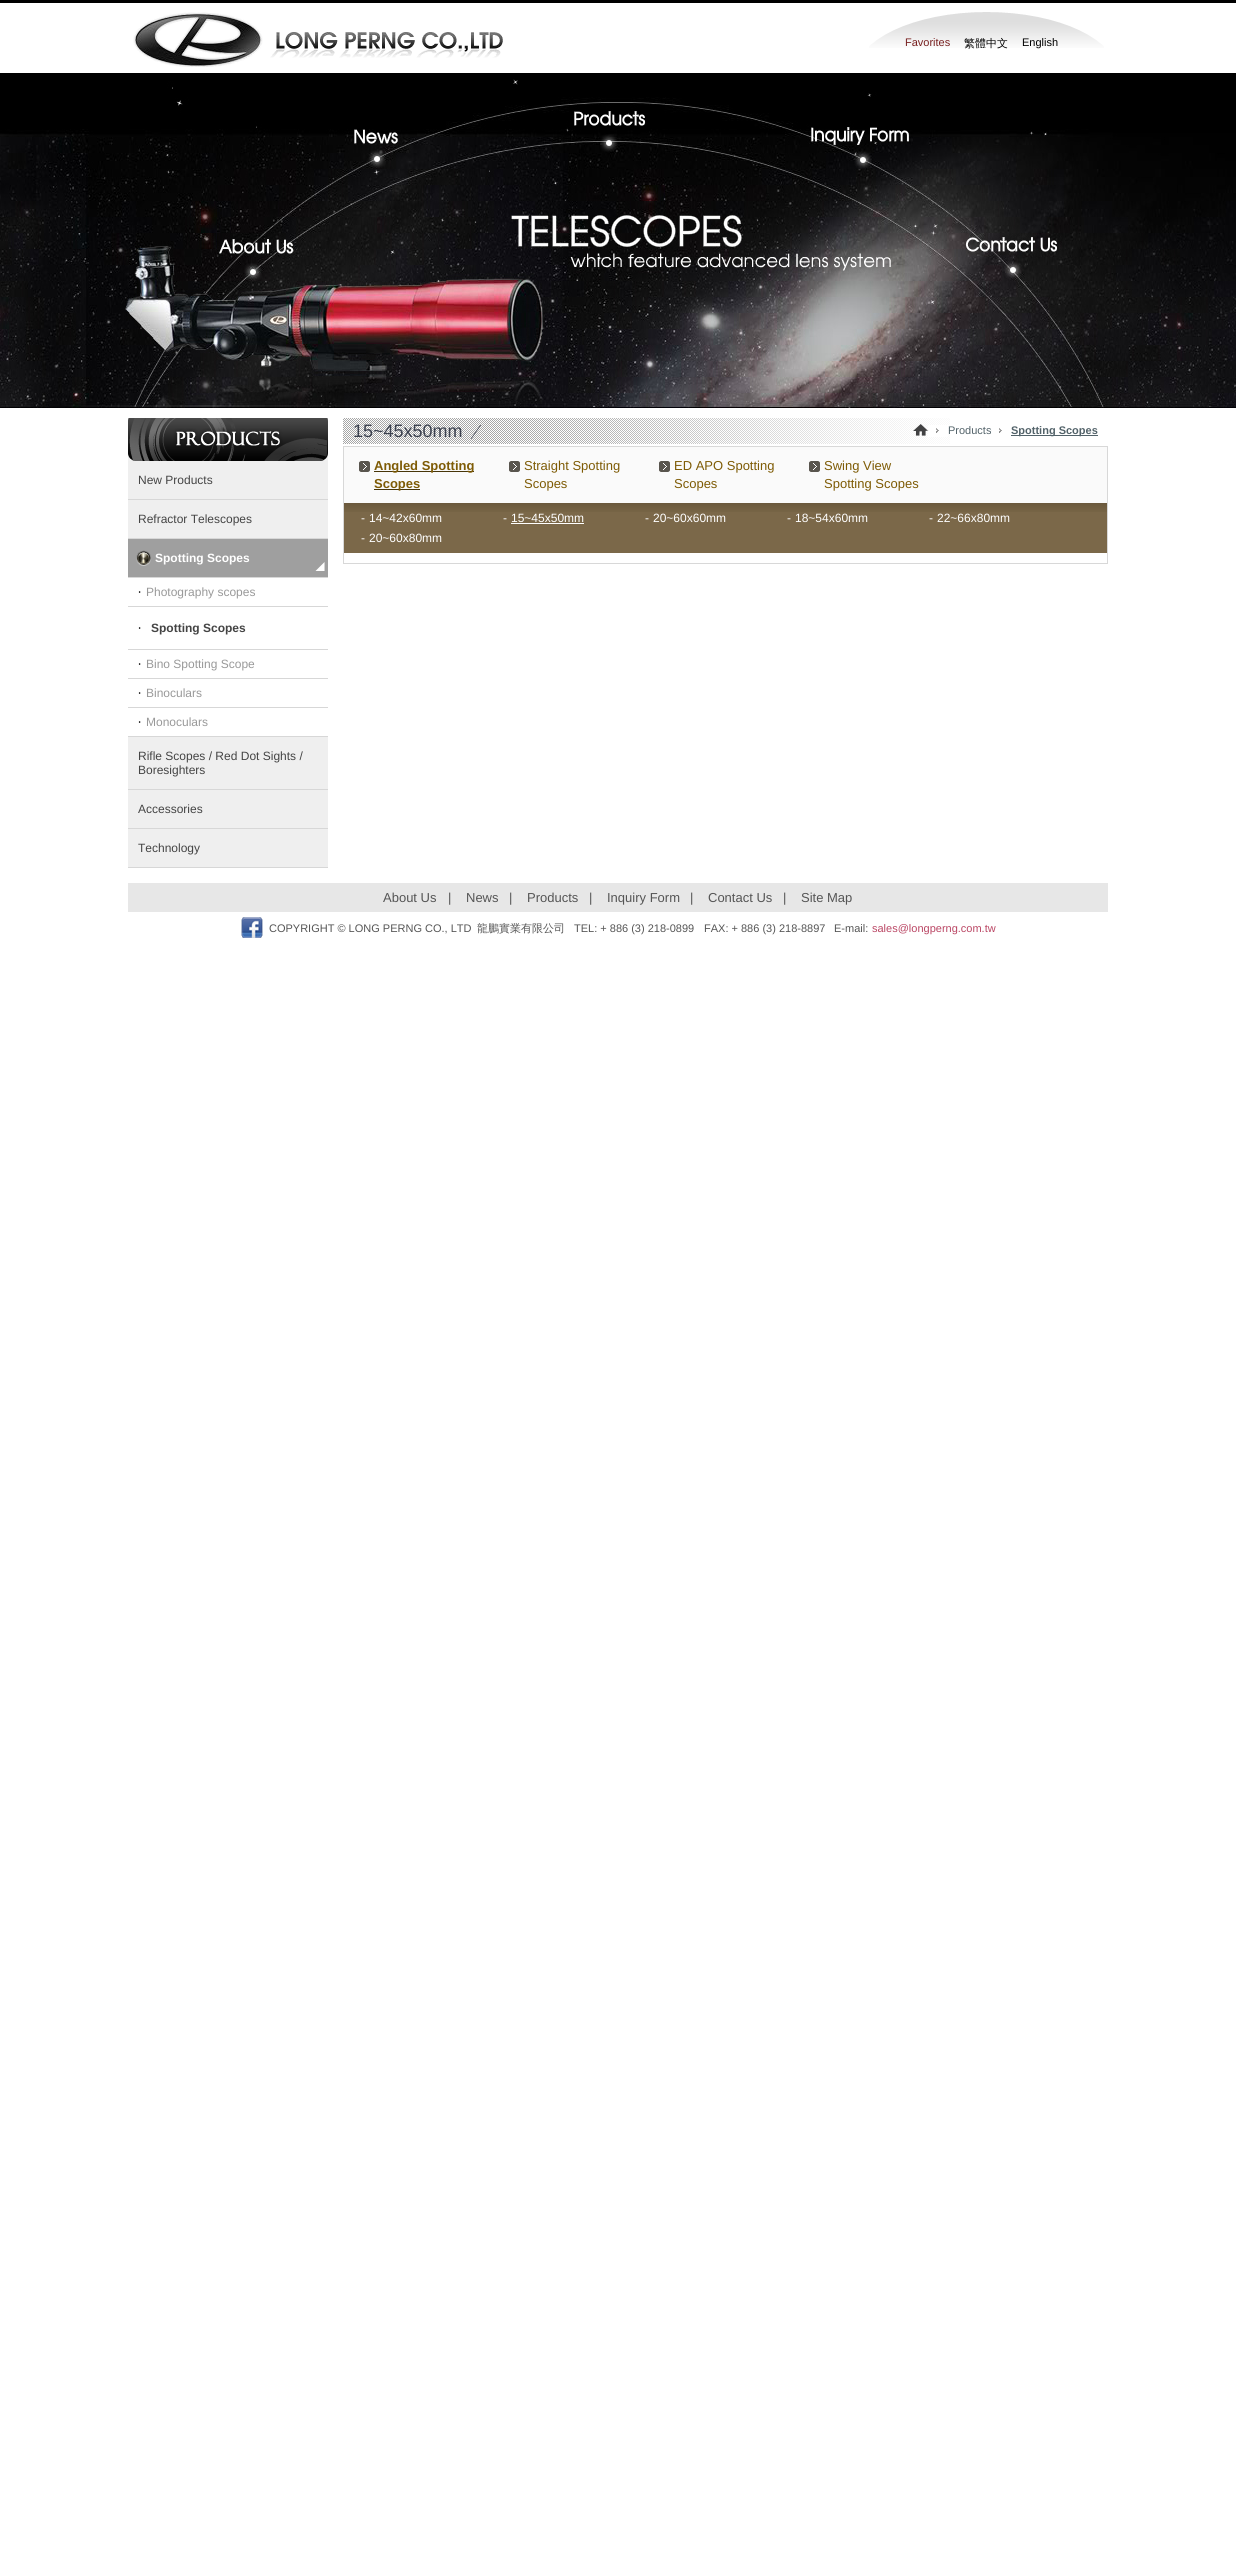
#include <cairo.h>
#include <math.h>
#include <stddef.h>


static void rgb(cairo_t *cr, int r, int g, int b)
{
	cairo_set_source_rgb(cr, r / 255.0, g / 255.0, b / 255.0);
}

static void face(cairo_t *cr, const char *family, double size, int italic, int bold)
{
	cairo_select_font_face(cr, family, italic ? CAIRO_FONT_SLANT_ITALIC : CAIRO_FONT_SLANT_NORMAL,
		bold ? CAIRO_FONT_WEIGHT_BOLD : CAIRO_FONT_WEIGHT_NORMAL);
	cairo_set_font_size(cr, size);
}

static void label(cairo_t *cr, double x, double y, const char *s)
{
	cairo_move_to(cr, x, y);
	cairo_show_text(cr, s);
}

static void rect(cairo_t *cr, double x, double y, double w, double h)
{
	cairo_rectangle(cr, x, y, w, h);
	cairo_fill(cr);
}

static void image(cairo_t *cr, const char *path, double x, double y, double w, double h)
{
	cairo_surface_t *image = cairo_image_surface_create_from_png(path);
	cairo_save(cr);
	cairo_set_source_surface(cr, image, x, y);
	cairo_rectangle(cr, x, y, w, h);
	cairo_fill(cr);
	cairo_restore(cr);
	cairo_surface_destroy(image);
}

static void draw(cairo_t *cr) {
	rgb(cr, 255, 255, 255);
	cairo_paint(cr);
	image(cr, "image0.png", 0, 0, 1236, 79);
	image(cr, "image1.png", 133, 12, 370, 55);
	image(cr, "image2.png", 869, 12, 235, 36);
	face(cr, "Liberation Sans", 11, 0, 0);
	rgb(cr, 120, 32, 32);
	label(cr, 905, 46, "Favorites");
	face(cr, "WenQuanYi Zen Hei Medium", 11, 0, 0);
	rgb(cr, 0, 0, 0);
	label(cr, 964, 47, "繁體中文");
	face(cr, "Liberation Sans", 11, 0, 0);
	label(cr, 1022, 46, "English");
	image(cr, "image3.png", 0, 79, 1236, 329);
	image(cr, "image4.png", 128, 418, 200, 43);
	rgb(cr, 215, 215, 215);
	rect(cr, 128, 499, 200, 1);
	rgb(cr, 239, 239, 239);
	rect(cr, 128, 461, 200, 38);
	face(cr, "Liberation Sans", 12, 0, 0);
	rgb(cr, 68, 68, 68);
	label(cr, 138, 484, "New Products");
	rgb(cr, 215, 215, 215);
	rect(cr, 128, 538, 200, 1);
	rgb(cr, 239, 239, 239);
	rect(cr, 128, 500, 200, 38);
	rgb(cr, 68, 68, 68);
	label(cr, 138, 523, "Refractor Telescopes");
	rgb(cr, 215, 215, 215);
	rect(cr, 128, 577, 200, 1);
	rgb(cr, 159, 159, 159);
	rect(cr, 128, 539, 200, 38);
	image(cr, "image5.png", 136, 550, 189, 21);
	face(cr, "Liberation Sans", 12, 0, 1);
	rgb(cr, 255, 255, 255);
	label(cr, 155, 562, "Spotting Scopes");
	rgb(cr, 215, 215, 215);
	rect(cr, 128, 606, 200, 1);
	face(cr, "Noto Sans", 12, 0, 0);
	rgb(cr, 0, 0, 0);
	label(cr, 138, 595, "‧");
	face(cr, "Liberation Sans", 12, 0, 0);
	rgb(cr, 153, 153, 153);
	label(cr, 146, 596, "Photography scopes");
	rgb(cr, 215, 215, 215);
	rect(cr, 128, 649, 200, 1);
	face(cr, "Noto Sans", 12, 0, 0);
	rgb(cr, 0, 0, 0);
	label(cr, 138, 631, "‧");
	face(cr, "Liberation Sans", 12, 0, 1);
	rgb(cr, 68, 68, 68);
	label(cr, 151, 632, "Spotting Scopes");
	rgb(cr, 215, 215, 215);
	rect(cr, 128, 678, 200, 1);
	face(cr, "Noto Sans", 12, 0, 0);
	rgb(cr, 0, 0, 0);
	label(cr, 138, 667, "‧");
	face(cr, "Liberation Sans", 12, 0, 0);
	rgb(cr, 153, 153, 153);
	label(cr, 146, 668, "Bino Spotting Scope");
	rgb(cr, 215, 215, 215);
	rect(cr, 128, 707, 200, 1);
	face(cr, "Noto Sans", 12, 0, 0);
	rgb(cr, 0, 0, 0);
	label(cr, 138, 696, "‧");
	face(cr, "Liberation Sans", 12, 0, 0);
	rgb(cr, 153, 153, 153);
	label(cr, 146, 697, "Binoculars");
	rgb(cr, 215, 215, 215);
	rect(cr, 128, 736, 200, 1);
	face(cr, "Noto Sans", 12, 0, 0);
	rgb(cr, 0, 0, 0);
	label(cr, 138, 725, "‧");
	face(cr, "Liberation Sans", 12, 0, 0);
	rgb(cr, 153, 153, 153);
	label(cr, 146, 726, "Monoculars");
	rgb(cr, 215, 215, 215);
	rect(cr, 128, 789, 200, 1);
	rgb(cr, 239, 239, 239);
	rect(cr, 128, 737, 200, 52);
	rgb(cr, 68, 68, 68);
	label(cr, 138, 760, "Rifle Scopes / Red Dot Sights /");
	label(cr, 138, 774, "Boresighters");
	rgb(cr, 215, 215, 215);
	rect(cr, 128, 828, 200, 1);
	rgb(cr, 239, 239, 239);
	rect(cr, 128, 790, 200, 38);
	rgb(cr, 68, 68, 68);
	label(cr, 138, 813, "Accessories");
	rgb(cr, 215, 215, 215);
	rect(cr, 128, 867, 200, 1);
	rgb(cr, 239, 239, 239);
	rect(cr, 128, 829, 200, 38);
	rgb(cr, 68, 68, 68);
	label(cr, 138, 852, "Technology");
	image(cr, "image6.png", 343, 418, 607, 26);
	face(cr, "Liberation Sans", 18, 0, 0);
	rgb(cr, 58, 64, 78);
	label(cr, 353, 437, "15~45x50mm");
	image(cr, "image7.png", 470, 425, 11, 14);
	image(cr, "image8.png", 913, 424, 15, 12);
	image(cr, "image9.png", 928, 425, 20, 12);
	face(cr, "Liberation Sans", 11, 0, 0);
	rgb(cr, 82, 98, 105);
	label(cr, 948, 434, "Products");
	image(cr, "image10.png", 991, 428, 11, 5);
	rect(cr, 1011, 435, 87, 1);
	face(cr, "Liberation Sans", 11, 0, 1);
	label(cr, 1011, 434, "Spotting Scopes");
	cairo_rectangle(cr, 343.5, 446.5, 764, 117);
	rgb(cr, 216, 216, 216);
	cairo_set_line_width(cr, 1);
	cairo_stroke(cr);
	rgb(cr, 250, 250, 250);
	rect(cr, 344, 447, 763, 56);
	image(cr, "image11.png", 359, 461, 11, 11);
	rgb(cr, 71, 53, 9);
	rect(cr, 374, 471, 100, 1);
	face(cr, "Liberation Sans", 13, 0, 1);
	rgb(cr, 126, 91, 5);
	label(cr, 374, 470, "Angled Spotting");
	rgb(cr, 71, 53, 9);
	rect(cr, 374, 489, 46, 1);
	rgb(cr, 126, 91, 5);
	label(cr, 374, 488, "Scopes");
	image(cr, "image11.png", 509, 461, 11, 11);
	face(cr, "Liberation Sans", 13, 0, 0);
	label(cr, 524, 470, "Straight Spotting");
	label(cr, 524, 488, "Scopes");
	image(cr, "image11.png", 659, 461, 11, 11);
	label(cr, 674, 470, "ED APO Spotting");
	label(cr, 674, 488, "Scopes");
	image(cr, "image11.png", 809, 461, 11, 11);
	label(cr, 824, 470, "Swing View");
	label(cr, 824, 488, "Spotting Scopes");
	rgb(cr, 123, 104, 73);
	rect(cr, 344, 512, 763, 41);
	image(cr, "image12.png", 344, 503, 763, 9);
	face(cr, "Liberation Sans", 12, 0, 0);
	rgb(cr, 255, 255, 255);
	label(cr, 361, 522, "-");
	label(cr, 369, 522, "14~42x60mm");
	label(cr, 503, 522, "-");
	label(cr, 511, 522, "15~45x50mm");
	rect(cr, 511, 523, 73, 1);
	label(cr, 645, 522, "-");
	label(cr, 653, 522, "20~60x60mm");
	label(cr, 787, 522, "-");
	label(cr, 795, 522, "18~54x60mm");
	label(cr, 929, 522, "-");
	label(cr, 937, 522, "22~66x80mm");
	label(cr, 361, 542, "-");
	label(cr, 369, 542, "20~60x80mm");
	rgb(cr, 231, 231, 231);
	rect(cr, 128, 883, 980, 29);
	face(cr, "Liberation Sans", 13, 0, 0);
	rgb(cr, 85, 85, 85);
	label(cr, 383, 902, "About Us");
	label(cr, 448, 902, "|");
	label(cr, 466, 902, "News");
	label(cr, 509, 902, "|");
	label(cr, 527, 902, "Products");
	label(cr, 589, 902, "|");
	label(cr, 607, 902, "Inquiry Form");
	label(cr, 690, 902, "|");
	label(cr, 708, 902, "Contact Us");
	label(cr, 783, 902, "|");
	label(cr, 801, 902, "Site Map");
	image(cr, "image13.png", 241, 917, 22, 21);
	face(cr, "Liberation Sans", 11, 0, 0);
	label(cr, 269, 932, "COPYRIGHT © LONG PERNG CO., LTD");
	face(cr, "WenQuanYi Zen Hei Medium", 11, 0, 0);
	label(cr, 477, 932, "龍鵬實業有限公司");
	face(cr, "Liberation Sans", 11, 0, 0);
	label(cr, 574, 932, "TEL: + 886 (3) 218-0899");
	label(cr, 704, 932, "FAX: + 886 (3) 218-8897");
	label(cr, 834, 932, "E-mail:");
	rgb(cr, 186, 70, 100);
	label(cr, 872, 932, "sales@longperng.com.tw");
}

int main(void) {
	cairo_surface_t *surface = cairo_image_surface_create(CAIRO_FORMAT_RGB24, 1236, 2575);
	cairo_t *cr = cairo_create(surface);
	cairo_font_options_t *options = cairo_font_options_create();
	cairo_font_options_set_hint_metrics(options, CAIRO_HINT_METRICS_OFF);
	cairo_font_options_set_hint_style(options, CAIRO_HINT_STYLE_NONE);
	cairo_set_font_options(cr, options);
	cairo_set_miter_limit(cr, 4);
	draw(cr);
	cairo_surface_write_to_png(surface, "render.png");
	cairo_font_options_destroy(options);
	cairo_destroy(cr);
	cairo_surface_destroy(surface);
	return 0;
}
